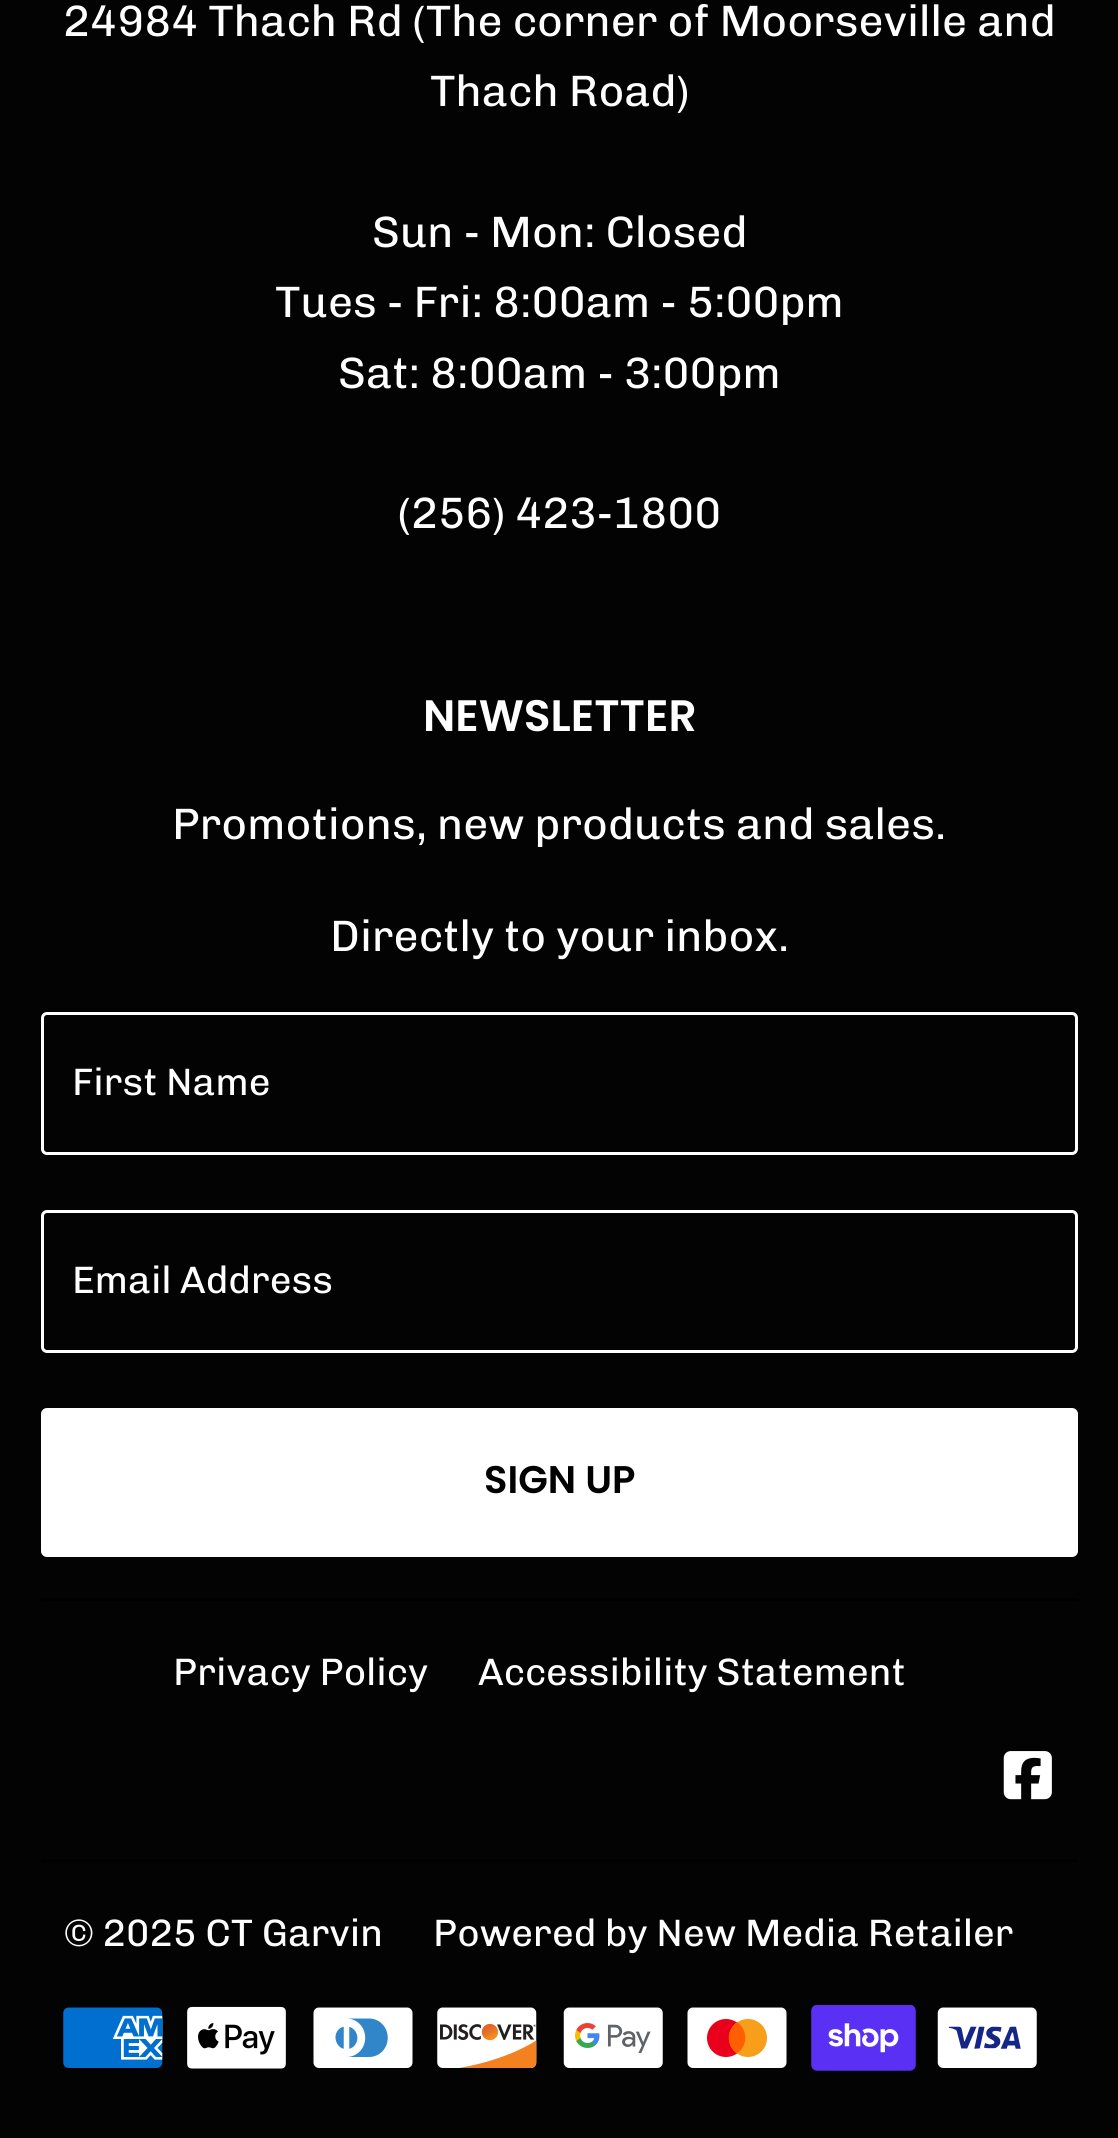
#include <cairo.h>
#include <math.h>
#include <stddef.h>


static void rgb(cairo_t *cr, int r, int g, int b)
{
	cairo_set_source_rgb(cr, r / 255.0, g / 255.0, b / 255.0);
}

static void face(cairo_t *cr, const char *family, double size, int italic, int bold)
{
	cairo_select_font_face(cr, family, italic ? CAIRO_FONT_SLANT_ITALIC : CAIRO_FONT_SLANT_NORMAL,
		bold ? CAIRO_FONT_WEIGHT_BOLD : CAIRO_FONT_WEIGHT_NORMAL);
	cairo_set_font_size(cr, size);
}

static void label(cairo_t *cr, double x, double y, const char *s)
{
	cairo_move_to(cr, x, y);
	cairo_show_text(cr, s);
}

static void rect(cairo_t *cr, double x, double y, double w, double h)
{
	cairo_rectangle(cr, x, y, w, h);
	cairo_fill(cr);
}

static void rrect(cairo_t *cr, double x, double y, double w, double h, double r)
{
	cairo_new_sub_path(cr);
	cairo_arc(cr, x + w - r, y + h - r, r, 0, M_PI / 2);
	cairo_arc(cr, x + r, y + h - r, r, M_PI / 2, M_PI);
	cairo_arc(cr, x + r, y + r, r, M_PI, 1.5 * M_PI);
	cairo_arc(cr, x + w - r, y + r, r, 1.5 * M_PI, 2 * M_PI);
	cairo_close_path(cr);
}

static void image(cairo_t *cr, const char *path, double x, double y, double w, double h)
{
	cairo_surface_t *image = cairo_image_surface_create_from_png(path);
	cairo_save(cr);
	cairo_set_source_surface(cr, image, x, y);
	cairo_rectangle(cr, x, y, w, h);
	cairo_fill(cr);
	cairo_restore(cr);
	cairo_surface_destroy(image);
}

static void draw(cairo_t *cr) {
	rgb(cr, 3, 3, 3);
	cairo_paint(cr);
	face(cr, "Chivo", 44, 0, 0);
	rgb(cr, 255, 255, 255);
	label(cr, 63, 36, "24984 Thach Rd (The corner of Moorseville and");
	label(cr, 430, 106, "Thach Road)");
	label(cr, 372, 247, "Sun - Mon: Closed");
	label(cr, 275, 317, "Tues - Fri: 8:00am - 5:00pm");
	label(cr, 338, 388, "Sat: 8:00am - 3:00pm");
	label(cr, 398, 528, "(256) 423-1800");
	face(cr, "Poppins SemiBold", 44, 0, 0);
	label(cr, 423, 731, "NEWSLETTER");
	face(cr, "Chivo", 44, 0, 0);
	label(cr, 172, 839, "Promotions, new products and sales.");
	label(cr, 330, 951, "Directly to your inbox.");
	rrect(cr, 42.5, 1013.5, 1034, 140, 4.5);
	cairo_set_line_width(cr, 3);
	cairo_stroke(cr);
	face(cr, "Chivo", 38.25, 0, 0);
	label(cr, 72, 1095, "First Name");
	rrect(cr, 42.5, 1211.5, 1034, 140, 4.5);
	cairo_stroke(cr);
	label(cr, 72, 1293, "Email Address");
	rrect(cr, 41, 1408, 1037, 149, 6);
	cairo_fill(cr);
	face(cr, "Poppins SemiBold", 38.5, 0, 0);
	rgb(cr, 0, 0, 0);
	label(cr, 484, 1493, "SIGN UP");
	rect(cr, 41, 1598, 1037, 3);
	face(cr, "Chivo", 38.25, 0, 0);
	rgb(cr, 255, 255, 255);
	label(cr, 173, 1685, "Privacy Policy");
	label(cr, 478, 1685, "Accessibility Statement");
	image(cr, "image0.png", 1003, 1751, 49, 49);
	rgb(cr, 0, 0, 0);
	rect(cr, 41, 1859, 1037, 3);
	rgb(cr, 255, 255, 255);
	label(cr, 64, 1946, "© 2025 CT Garvin");
	label(cr, 433, 1946, "Powered by New Media Retailer");
	image(cr, "image1.png", 63, 2007, 100, 61);
	image(cr, "image2.png", 187, 2006, 99, 63);
	image(cr, "image3.png", 313, 2007, 100, 61);
	image(cr, "image4.png", 437, 2007, 100, 61);
	image(cr, "image5.png", 563, 2007, 100, 61);
	image(cr, "image6.png", 687, 2007, 100, 61);
	image(cr, "image7.png", 811, 2005, 105, 66);
	image(cr, "image8.png", 937, 2007, 100, 61);
}

int main(void) {
	cairo_surface_t *surface = cairo_image_surface_create(CAIRO_FORMAT_RGB24, 1118, 2138);
	cairo_t *cr = cairo_create(surface);
	cairo_font_options_t *options = cairo_font_options_create();
	cairo_font_options_set_hint_metrics(options, CAIRO_HINT_METRICS_OFF);
	cairo_font_options_set_hint_style(options, CAIRO_HINT_STYLE_NONE);
	cairo_set_font_options(cr, options);
	cairo_set_miter_limit(cr, 4);
	draw(cr);
	cairo_surface_write_to_png(surface, "render.png");
	cairo_font_options_destroy(options);
	cairo_destroy(cr);
	cairo_surface_destroy(surface);
	return 0;
}
